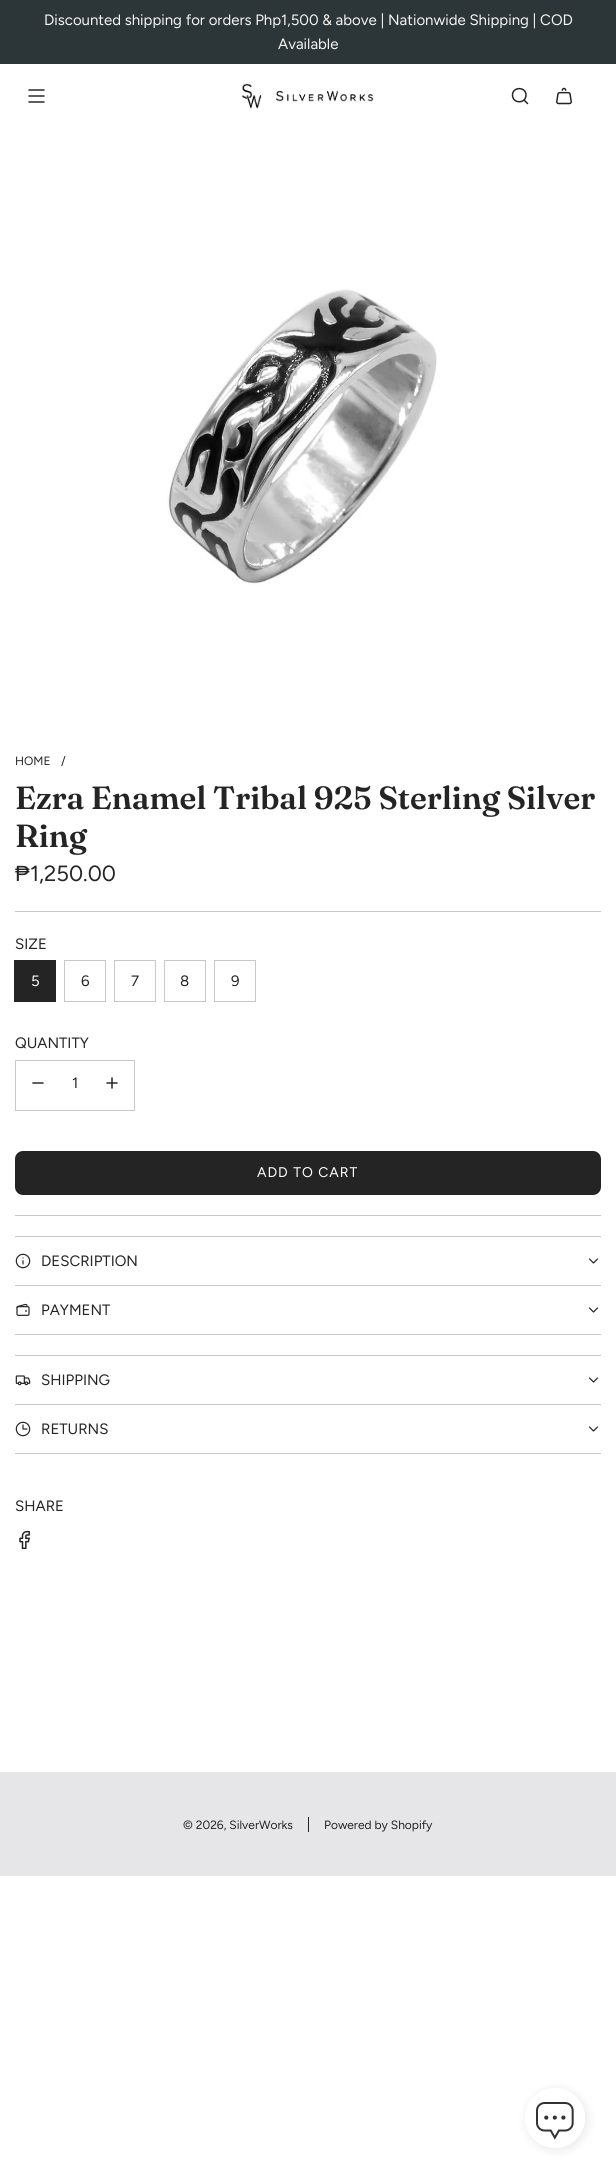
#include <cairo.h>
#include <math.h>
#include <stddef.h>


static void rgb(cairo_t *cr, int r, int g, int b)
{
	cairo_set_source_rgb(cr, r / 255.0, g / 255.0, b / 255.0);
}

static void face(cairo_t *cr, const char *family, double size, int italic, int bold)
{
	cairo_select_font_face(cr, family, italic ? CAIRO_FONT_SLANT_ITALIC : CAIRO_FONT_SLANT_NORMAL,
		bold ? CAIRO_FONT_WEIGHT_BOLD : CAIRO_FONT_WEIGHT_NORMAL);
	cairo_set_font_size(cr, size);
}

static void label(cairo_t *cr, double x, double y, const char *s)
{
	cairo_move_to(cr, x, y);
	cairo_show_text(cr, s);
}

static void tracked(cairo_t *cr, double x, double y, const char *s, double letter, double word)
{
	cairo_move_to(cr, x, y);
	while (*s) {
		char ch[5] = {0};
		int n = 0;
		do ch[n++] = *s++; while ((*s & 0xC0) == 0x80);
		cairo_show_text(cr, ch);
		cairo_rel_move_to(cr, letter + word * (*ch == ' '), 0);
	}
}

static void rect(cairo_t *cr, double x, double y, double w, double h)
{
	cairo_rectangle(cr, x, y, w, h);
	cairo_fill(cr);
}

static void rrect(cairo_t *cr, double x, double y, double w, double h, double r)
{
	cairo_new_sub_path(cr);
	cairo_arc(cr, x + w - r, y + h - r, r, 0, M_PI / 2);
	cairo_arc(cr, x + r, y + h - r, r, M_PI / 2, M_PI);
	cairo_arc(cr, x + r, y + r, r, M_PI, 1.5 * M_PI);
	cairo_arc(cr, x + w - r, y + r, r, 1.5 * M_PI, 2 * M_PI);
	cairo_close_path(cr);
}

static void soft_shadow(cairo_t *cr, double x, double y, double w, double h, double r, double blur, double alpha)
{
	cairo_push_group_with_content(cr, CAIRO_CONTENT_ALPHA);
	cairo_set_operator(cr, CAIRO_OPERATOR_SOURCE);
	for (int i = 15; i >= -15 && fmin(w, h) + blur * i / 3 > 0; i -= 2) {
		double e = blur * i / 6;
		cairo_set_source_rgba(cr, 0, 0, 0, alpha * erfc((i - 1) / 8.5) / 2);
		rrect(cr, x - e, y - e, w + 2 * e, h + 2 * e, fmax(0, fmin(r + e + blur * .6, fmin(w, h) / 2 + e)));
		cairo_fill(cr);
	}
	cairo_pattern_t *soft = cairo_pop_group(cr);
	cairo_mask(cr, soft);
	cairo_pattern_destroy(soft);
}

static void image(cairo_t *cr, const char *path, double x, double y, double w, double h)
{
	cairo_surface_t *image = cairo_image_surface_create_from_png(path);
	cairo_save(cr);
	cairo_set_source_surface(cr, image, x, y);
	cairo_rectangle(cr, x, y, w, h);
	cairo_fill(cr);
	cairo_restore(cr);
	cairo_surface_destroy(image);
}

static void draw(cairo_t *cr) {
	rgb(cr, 255, 255, 255);
	cairo_paint(cr);
	rgb(cr, 44, 54, 57);
	rect(cr, 0, 0, 616, 64);
	face(cr, "Figtree", 15, 0, 0);
	rgb(cr, 246, 245, 241);
	label(cr, 44, 25, "Discounted shipping for orders Php1,500 & above | Nationwide Shipping | COD");
	label(cr, 278, 49, "Available");
	cairo_new_path(cr);
	cairo_move_to(cr, 29, 90);
	cairo_line_to(cr, 44, 90);
	cairo_move_to(cr, 29, 96);
	cairo_line_to(cr, 44, 96);
	cairo_move_to(cr, 29, 102);
	cairo_line_to(cr, 44, 102);
	rgb(cr, 38, 36, 40);
	cairo_set_line_width(cr, 1.5);
	cairo_set_line_cap(cr, CAIRO_LINE_CAP_ROUND);
	cairo_set_line_join(cr, CAIRO_LINE_JOIN_ROUND);
	cairo_stroke(cr);
	image(cr, "image0.png", 241, 83, 133, 26);
	cairo_new_path(cr);
	cairo_move_to(cr, 524, 100);
	cairo_line_to(cr, 527.5, 103.5);
	cairo_move_to(cr, 512.5, 95);
	cairo_curve_to(cr, 512.5, 104, 526, 104, 526, 95);
	cairo_curve_to(cr, 526, 86.5, 512.5, 86.5, 512.5, 95);
	cairo_close_path(cr);
	cairo_stroke(cr);
	image(cr, "image1.png", 556, 87, 16, 18);
	image(cr, "image2.png", 167, 289, 270, 296);
	face(cr, "Figtree", 12, 0, 0);
	rgb(cr, 36, 36, 36);
	label(cr, 15, 765, "HOME");
	label(cr, 61, 765, "/");
	face(cr, "Fraunces SemiBold", 32, 0, 0);
	label(cr, 15, 809, "Ezra Enamel Tribal 925 Sterling Silver");
	label(cr, 15, 847, "Ring");
	face(cr, "Liberation Sans", 22, 0, 0);
	label(cr, 15, 881, "₱");
	face(cr, "Figtree", 22, 0, 0);
	label(cr, 30, 881, "1,250.00");
	rgb(cr, 200, 200, 200);
	rect(cr, 15, 911, 586, 1);
	face(cr, "Figtree", 15, 0, 0);
	rgb(cr, 36, 36, 36);
	label(cr, 15, 949, "SIZE");
	rect(cr, 15, 961, 40, 40);
	cairo_rectangle(cr, 14.5, 960.5, 41, 41);
	cairo_set_line_width(cr, 1);
	cairo_set_line_cap(cr, CAIRO_LINE_CAP_BUTT);
	cairo_set_line_join(cr, CAIRO_LINE_JOIN_MITER);
	cairo_stroke(cr);
	rgb(cr, 255, 255, 255);
	label(cr, 31, 986, "5");
	cairo_rectangle(cr, 64.5, 960.5, 41, 41);
	rgb(cr, 200, 200, 200);
	cairo_stroke(cr);
	rgb(cr, 36, 36, 36);
	label(cr, 81, 986, "6");
	cairo_rectangle(cr, 114.5, 960.5, 41, 41);
	rgb(cr, 200, 200, 200);
	cairo_stroke(cr);
	rgb(cr, 36, 36, 36);
	label(cr, 131, 986, "7");
	cairo_rectangle(cr, 164.5, 960.5, 41, 41);
	rgb(cr, 200, 200, 200);
	cairo_stroke(cr);
	rgb(cr, 36, 36, 36);
	label(cr, 180, 986, "8");
	cairo_rectangle(cr, 214.5, 960.5, 41, 41);
	rgb(cr, 200, 200, 200);
	cairo_stroke(cr);
	rgb(cr, 36, 36, 36);
	label(cr, 231, 986, "9");
	label(cr, 15, 1048, "QUANTITY");
	cairo_rectangle(cr, 15.5, 1060.5, 119, 50);
	rgb(cr, 200, 200, 200);
	cairo_stroke(cr);
	cairo_new_path(cr);
	cairo_move_to(cr, 33, 1083);
	cairo_line_to(cr, 43, 1083);
	rgb(cr, 36, 36, 36);
	cairo_set_line_width(cr, 1.5);
	cairo_set_line_cap(cr, CAIRO_LINE_CAP_ROUND);
	cairo_set_line_join(cr, CAIRO_LINE_JOIN_ROUND);
	cairo_stroke(cr);
	label(cr, 72, 1088, "1");
	image(cr, "image3.png", 106, 1077, 12, 12);
	rrect(cr, 15, 1151, 586, 44, 8);
	cairo_fill(cr);
	face(cr, "Figtree", 14, 0, 0);
	rgb(cr, 255, 255, 255);
	tracked(cr, 257, 1177, "ADD TO CART", 1, 0);
	rgb(cr, 200, 200, 200);
	rect(cr, 15, 1215, 586, 1);
	rect(cr, 15, 1236, 586, 1);
	rect(cr, 15, 1285, 586, 1);
	image(cr, "image4.png", 15, 1253, 16, 16);
	face(cr, "Figtree", 15, 0, 0);
	rgb(cr, 36, 36, 36);
	label(cr, 41, 1266, "DESCRIPTION");
	cairo_new_path(cr);
	cairo_move_to(cr, 589.5, 1259);
	cairo_line_to(cr, 593.5, 1263);
	cairo_line_to(cr, 597.5, 1259);
	cairo_move_to(cr, 589.5, 1308);
	cairo_line_to(cr, 593.5, 1312);
	cairo_line_to(cr, 597.5, 1308);
	cairo_set_line_width(cr, 1.2);
	cairo_stroke(cr);
	rgb(cr, 200, 200, 200);
	rect(cr, 15, 1334, 586, 1);
	image(cr, "image5.png", 16, 1303, 14, 13);
	rgb(cr, 36, 36, 36);
	label(cr, 41, 1315, "PAYMENT");
	rgb(cr, 200, 200, 200);
	rect(cr, 15, 1355, 586, 1);
	rect(cr, 15, 1404, 586, 1);
	image(cr, "image6.png", 15, 1375, 16, 11);
	rgb(cr, 36, 36, 36);
	label(cr, 41, 1385, "SHIPPING");
	cairo_new_path(cr);
	cairo_move_to(cr, 589.5, 1378);
	cairo_line_to(cr, 593.5, 1382);
	cairo_line_to(cr, 597.5, 1378);
	cairo_move_to(cr, 589.5, 1427);
	cairo_line_to(cr, 593.5, 1431);
	cairo_line_to(cr, 597.5, 1427);
	cairo_stroke(cr);
	rgb(cr, 200, 200, 200);
	rect(cr, 15, 1453, 586, 1);
	image(cr, "image7.png", 15, 1421, 16, 16);
	rgb(cr, 36, 36, 36);
	label(cr, 41, 1434, "RETURNS");
	label(cr, 15, 1511, "SHARE");
	image(cr, "image8.png", 19, 1530, 11, 20);
	rgb(cr, 230, 229, 231);
	rect(cr, 0, 1772, 616, 104);
	face(cr, "Figtree", 12, 0, 0);
	rgb(cr, 36, 36, 36);
	label(cr, 183, 1829, "© 2026, SilverWorks");
	rect(cr, 308, 1817, 1, 15);
	label(cr, 324, 1829, "Powered by Shopify");
	cairo_save(cr);
	cairo_set_fill_rule(cr, CAIRO_FILL_RULE_EVEN_ODD);
	cairo_new_path(cr);
	cairo_move_to(cr, 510, 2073);
	cairo_line_to(cr, 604, 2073);
	cairo_line_to(cr, 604, 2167);
	cairo_line_to(cr, 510, 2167);
	cairo_close_path(cr);
	cairo_move_to(cr, 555, 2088);
	cairo_curve_to(cr, 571.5, 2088, 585, 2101.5, 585, 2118);
	cairo_curve_to(cr, 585, 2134.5, 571.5, 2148, 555, 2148);
	cairo_curve_to(cr, 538.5, 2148, 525, 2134.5, 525, 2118);
	cairo_curve_to(cr, 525, 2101.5, 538.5, 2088, 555, 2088);
	cairo_close_path(cr);
	cairo_clip(cr);
	rgb(cr, 0, 0, 0);
	soft_shadow(cr, 525, 2088, 64, 64, 32, 4.5, 0.07);
	cairo_restore(cr);
	image(cr, "image9.png", 531, 2099, 54, 49);
}

int main(void) {
	cairo_surface_t *surface = cairo_image_surface_create(CAIRO_FORMAT_RGB24, 616, 2177);
	cairo_t *cr = cairo_create(surface);
	cairo_font_options_t *options = cairo_font_options_create();
	cairo_font_options_set_hint_metrics(options, CAIRO_HINT_METRICS_OFF);
	cairo_font_options_set_hint_style(options, CAIRO_HINT_STYLE_NONE);
	cairo_set_font_options(cr, options);
	cairo_set_miter_limit(cr, 4);
	draw(cr);
	cairo_surface_write_to_png(surface, "render.png");
	cairo_font_options_destroy(options);
	cairo_destroy(cr);
	cairo_surface_destroy(surface);
	return 0;
}
